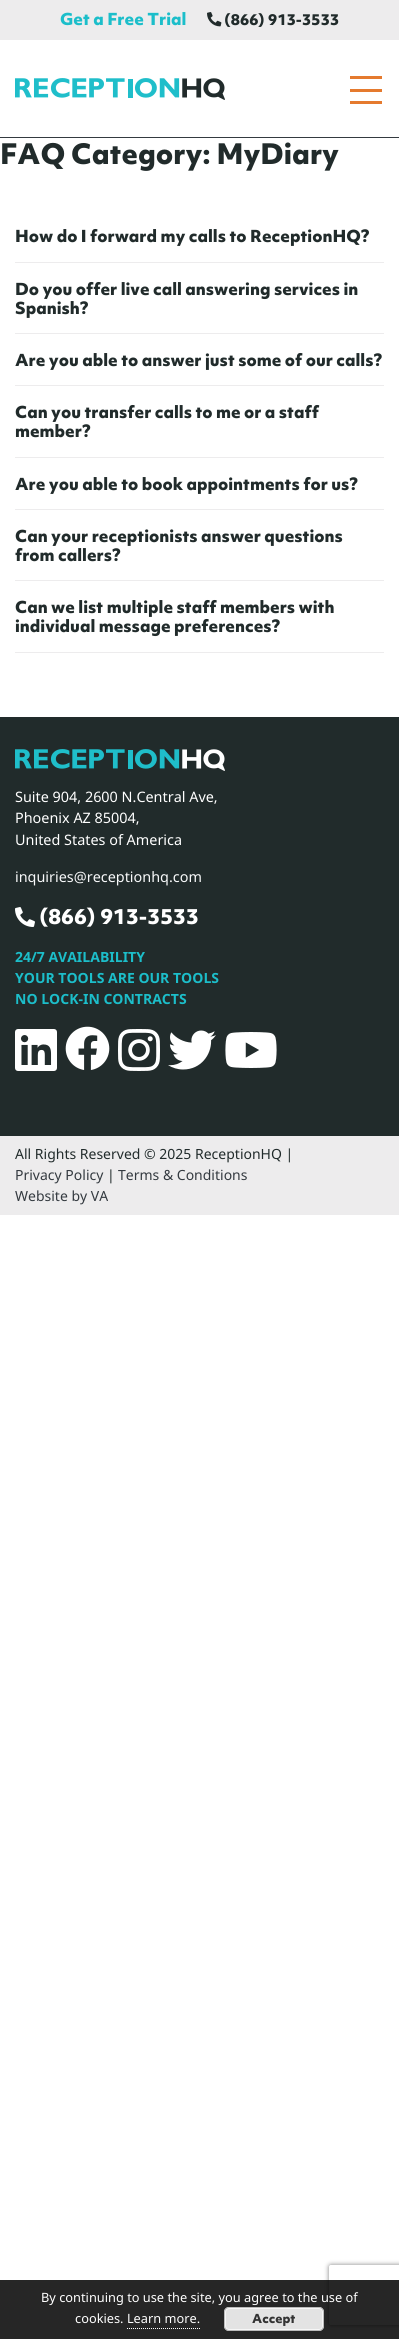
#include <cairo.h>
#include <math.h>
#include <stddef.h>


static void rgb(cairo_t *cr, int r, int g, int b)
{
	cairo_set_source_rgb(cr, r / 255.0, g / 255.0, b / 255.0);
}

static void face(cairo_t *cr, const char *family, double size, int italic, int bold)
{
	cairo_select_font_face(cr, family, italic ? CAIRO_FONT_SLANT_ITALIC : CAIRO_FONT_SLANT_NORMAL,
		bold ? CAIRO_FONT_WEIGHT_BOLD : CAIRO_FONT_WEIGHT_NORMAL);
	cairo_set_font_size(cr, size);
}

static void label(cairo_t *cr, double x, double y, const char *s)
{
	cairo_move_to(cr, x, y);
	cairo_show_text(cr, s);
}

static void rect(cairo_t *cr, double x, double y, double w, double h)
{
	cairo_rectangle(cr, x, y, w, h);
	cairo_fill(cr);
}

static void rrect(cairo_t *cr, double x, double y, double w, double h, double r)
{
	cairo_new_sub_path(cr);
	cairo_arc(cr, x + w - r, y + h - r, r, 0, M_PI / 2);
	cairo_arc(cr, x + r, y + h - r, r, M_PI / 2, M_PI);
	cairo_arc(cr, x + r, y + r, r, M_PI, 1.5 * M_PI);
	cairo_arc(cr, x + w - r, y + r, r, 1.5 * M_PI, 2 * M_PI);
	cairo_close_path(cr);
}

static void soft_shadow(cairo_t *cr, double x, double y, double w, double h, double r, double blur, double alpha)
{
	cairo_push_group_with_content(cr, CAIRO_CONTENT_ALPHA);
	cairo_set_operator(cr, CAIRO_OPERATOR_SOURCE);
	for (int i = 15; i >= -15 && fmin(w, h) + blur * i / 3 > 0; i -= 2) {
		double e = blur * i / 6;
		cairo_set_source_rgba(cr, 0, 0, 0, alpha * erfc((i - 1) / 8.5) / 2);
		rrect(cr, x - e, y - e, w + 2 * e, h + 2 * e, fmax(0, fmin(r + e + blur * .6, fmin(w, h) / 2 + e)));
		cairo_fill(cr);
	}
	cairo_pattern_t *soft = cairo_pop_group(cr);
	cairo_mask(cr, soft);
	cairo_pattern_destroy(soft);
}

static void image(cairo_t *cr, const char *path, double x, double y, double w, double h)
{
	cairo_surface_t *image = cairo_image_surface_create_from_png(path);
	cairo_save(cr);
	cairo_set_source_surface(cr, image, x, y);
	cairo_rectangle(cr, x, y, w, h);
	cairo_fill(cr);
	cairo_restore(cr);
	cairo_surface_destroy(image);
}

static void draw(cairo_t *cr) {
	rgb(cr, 255, 255, 255);
	cairo_paint(cr);
	rgb(cr, 237, 236, 237);
	rect(cr, 0, 0, 399, 40);
	face(cr, "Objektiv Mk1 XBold", 16, 0, 1);
	rgb(cr, 28, 190, 202);
	label(cr, 60, 25, "Get a Free Trial");
	image(cr, "image0.png", 207, 12, 15, 15);
	face(cr, "Objektiv Mk1 XBold", 14.4, 0, 1);
	rgb(cr, 33, 43, 43);
	label(cr, 224, 25, "(866) 913-3533");
	rgb(cr, 52, 58, 64);
	rect(cr, 0, 137, 399, 1);
	image(cr, "image1.png", 15, 78, 210, 22);
	rgb(cr, 229, 122, 46);
	rect(cr, 350, 76, 32, 3);
	rect(cr, 350, 89, 32, 3);
	rect(cr, 350, 101, 32, 3);
	face(cr, "Objektiv Mk1 XBold", 27.25, 0, 1);
	rgb(cr, 33, 43, 43);
	label(cr, 0, 164, "FAQ Category: MyDiary");
	rgb(cr, 237, 236, 237);
	rect(cr, 15, 262, 369, 1);
	face(cr, "Objektiv Mk1 XBold", 16, 0, 1);
	rgb(cr, 33, 43, 43);
	label(cr, 15, 242, "How do I forward my calls to ReceptionHQ?");
	rgb(cr, 237, 236, 237);
	rect(cr, 15, 333, 369, 1);
	rgb(cr, 33, 43, 43);
	label(cr, 15, 295, "Do you offer live call answering services in");
	label(cr, 15, 314, "Spanish?");
	rgb(cr, 237, 236, 237);
	rect(cr, 15, 385, 369, 1);
	rgb(cr, 33, 43, 43);
	label(cr, 15, 366, "Are you able to answer just some of our calls?");
	rgb(cr, 237, 236, 237);
	rect(cr, 15, 457, 369, 1);
	rgb(cr, 33, 43, 43);
	label(cr, 15, 418, "Can you transfer calls to me or a staff");
	label(cr, 15, 437, "member?");
	rgb(cr, 237, 236, 237);
	rect(cr, 15, 509, 369, 1);
	rgb(cr, 33, 43, 43);
	label(cr, 15, 490, "Are you able to book appointments for us?");
	rgb(cr, 237, 236, 237);
	rect(cr, 15, 580, 369, 1);
	rgb(cr, 33, 43, 43);
	label(cr, 15, 542, "Can your receptionists answer questions");
	label(cr, 15, 561, "from callers?");
	rgb(cr, 237, 236, 237);
	rect(cr, 15, 652, 369, 1);
	rgb(cr, 33, 43, 43);
	label(cr, 15, 613, "Can we list multiple staff members with");
	label(cr, 15, 632, "individual message preferences?");
	rect(cr, 0, 717, 399, 419);
	image(cr, "image2.png", 15, 749, 210, 22);
	face(cr, "Noto Sans", 14.4, 0, 0);
	rgb(cr, 255, 255, 255);
	label(cr, 15, 802, "Suite 904, 2600 N.Central Ave,");
	label(cr, 15, 823, "Phoenix AZ 85004,");
	label(cr, 15, 845, "United States of America");
	rgb(cr, 248, 249, 250);
	label(cr, 15, 882, "inquiries@receptionhq.com");
	image(cr, "image3.png", 15, 907, 20, 20);
	face(cr, "Objektiv Mk1 XBold", 20, 0, 1);
	rgb(cr, 255, 255, 255);
	label(cr, 39, 924, "(866) 913-3533");
	face(cr, "Noto Sans", 14, 0, 1);
	rgb(cr, 28, 190, 202);
	label(cr, 15, 962, "24/7 AVAILABILITY");
	label(cr, 15, 983, "YOUR TOOLS ARE OUR TOOLS");
	label(cr, 15, 1004, "NO LOCK-IN CONTRACTS");
	image(cr, "image4.png", 15, 1029, 42, 42);
	image(cr, "image5.png", 65, 1026, 45, 44);
	image(cr, "image6.png", 118, 1029, 42, 42);
	image(cr, "image7.png", 168, 1030, 48, 40);
	image(cr, "image8.png", 225, 1032, 52, 36);
	rgb(cr, 237, 236, 237);
	rect(cr, 0, 1136, 399, 79);
	face(cr, "Noto Sans", 14, 0, 0);
	rgb(cr, 33, 43, 43);
	label(cr, 15, 1159, "All Rights Reserved © 2025 ReceptionHQ |");
	rgb(cr, 52, 58, 64);
	label(cr, 15, 1180, "Privacy Policy");
	rgb(cr, 33, 43, 43);
	label(cr, 107, 1180, "|");
	rgb(cr, 52, 58, 64);
	label(cr, 118, 1180, "Terms & Conditions");
	label(cr, 15, 1201, "Website by VA");
	cairo_save(cr);
	cairo_set_fill_rule(cr, CAIRO_FILL_RULE_EVEN_ODD);
	cairo_new_path(cr);
	cairo_move_to(cr, 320, 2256);
	cairo_line_to(cr, 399, 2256);
	cairo_line_to(cr, 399, 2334);
	cairo_line_to(cr, 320, 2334);
	cairo_close_path(cr);
	cairo_move_to(cr, 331, 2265);
	cairo_line_to(cr, 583, 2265);
	cairo_curve_to(cr, 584, 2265, 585, 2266, 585, 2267);
	cairo_line_to(cr, 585, 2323);
	cairo_curve_to(cr, 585, 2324, 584, 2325, 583, 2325);
	cairo_line_to(cr, 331, 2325);
	cairo_curve_to(cr, 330, 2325, 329, 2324, 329, 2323);
	cairo_line_to(cr, 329, 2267);
	cairo_curve_to(cr, 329, 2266, 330, 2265, 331, 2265);
	cairo_close_path(cr);
	cairo_clip(cr);
	rgb(cr, 128, 128, 128);
	soft_shadow(cr, 329, 2265, 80, 60, 2, 2.5, 1);
	cairo_restore(cr);
	cairo_set_source_rgba(cr, 0, 0, 0, 0.85);
	rect(cr, 0, 2280, 399, 59);
	face(cr, "Noto Sans", 12.8, 0, 0);
	rgb(cr, 255, 255, 255);
	label(cr, 41, 2302, "By continuing to use the site, you agree to the use of");
	label(cr, 75, 2323, "cookies. Learn more.");
	rgb(cr, 227, 227, 227);
	rrect(cr, 224, 2307, 100, 24, 5);
	cairo_fill(cr);
	rrect(cr, 225.5, 2308.5, 97, 21, 3.5);
	rgb(cr, 246, 246, 246);
	cairo_set_line_width(cr, 1);
	cairo_stroke(cr);
	rrect(cr, 224.5, 2307.5, 99, 23, 4.5);
	rgb(cr, 187, 187, 187);
	cairo_stroke(cr);
	face(cr, "Objektiv Mk1 XBold", 12, 0, 1);
	rgb(cr, 51, 51, 51);
	label(cr, 252, 2323, "Accept");
	cairo_new_path(cr);
	cairo_move_to(cr, 127, 2328.5);
	cairo_line_to(cr, 200, 2328.5);
	rgb(cr, 255, 255, 255);
	cairo_set_dash(cr, (double[]){1, 1}, 2, 0);
	cairo_stroke(cr);
}

int main(void) {
	cairo_surface_t *surface = cairo_image_surface_create(CAIRO_FORMAT_RGB24, 399, 2339);
	cairo_t *cr = cairo_create(surface);
	cairo_font_options_t *options = cairo_font_options_create();
	cairo_font_options_set_hint_metrics(options, CAIRO_HINT_METRICS_OFF);
	cairo_font_options_set_hint_style(options, CAIRO_HINT_STYLE_NONE);
	cairo_set_font_options(cr, options);
	cairo_set_miter_limit(cr, 4);
	draw(cr);
	cairo_surface_write_to_png(surface, "render.png");
	cairo_font_options_destroy(options);
	cairo_destroy(cr);
	cairo_surface_destroy(surface);
	return 0;
}
